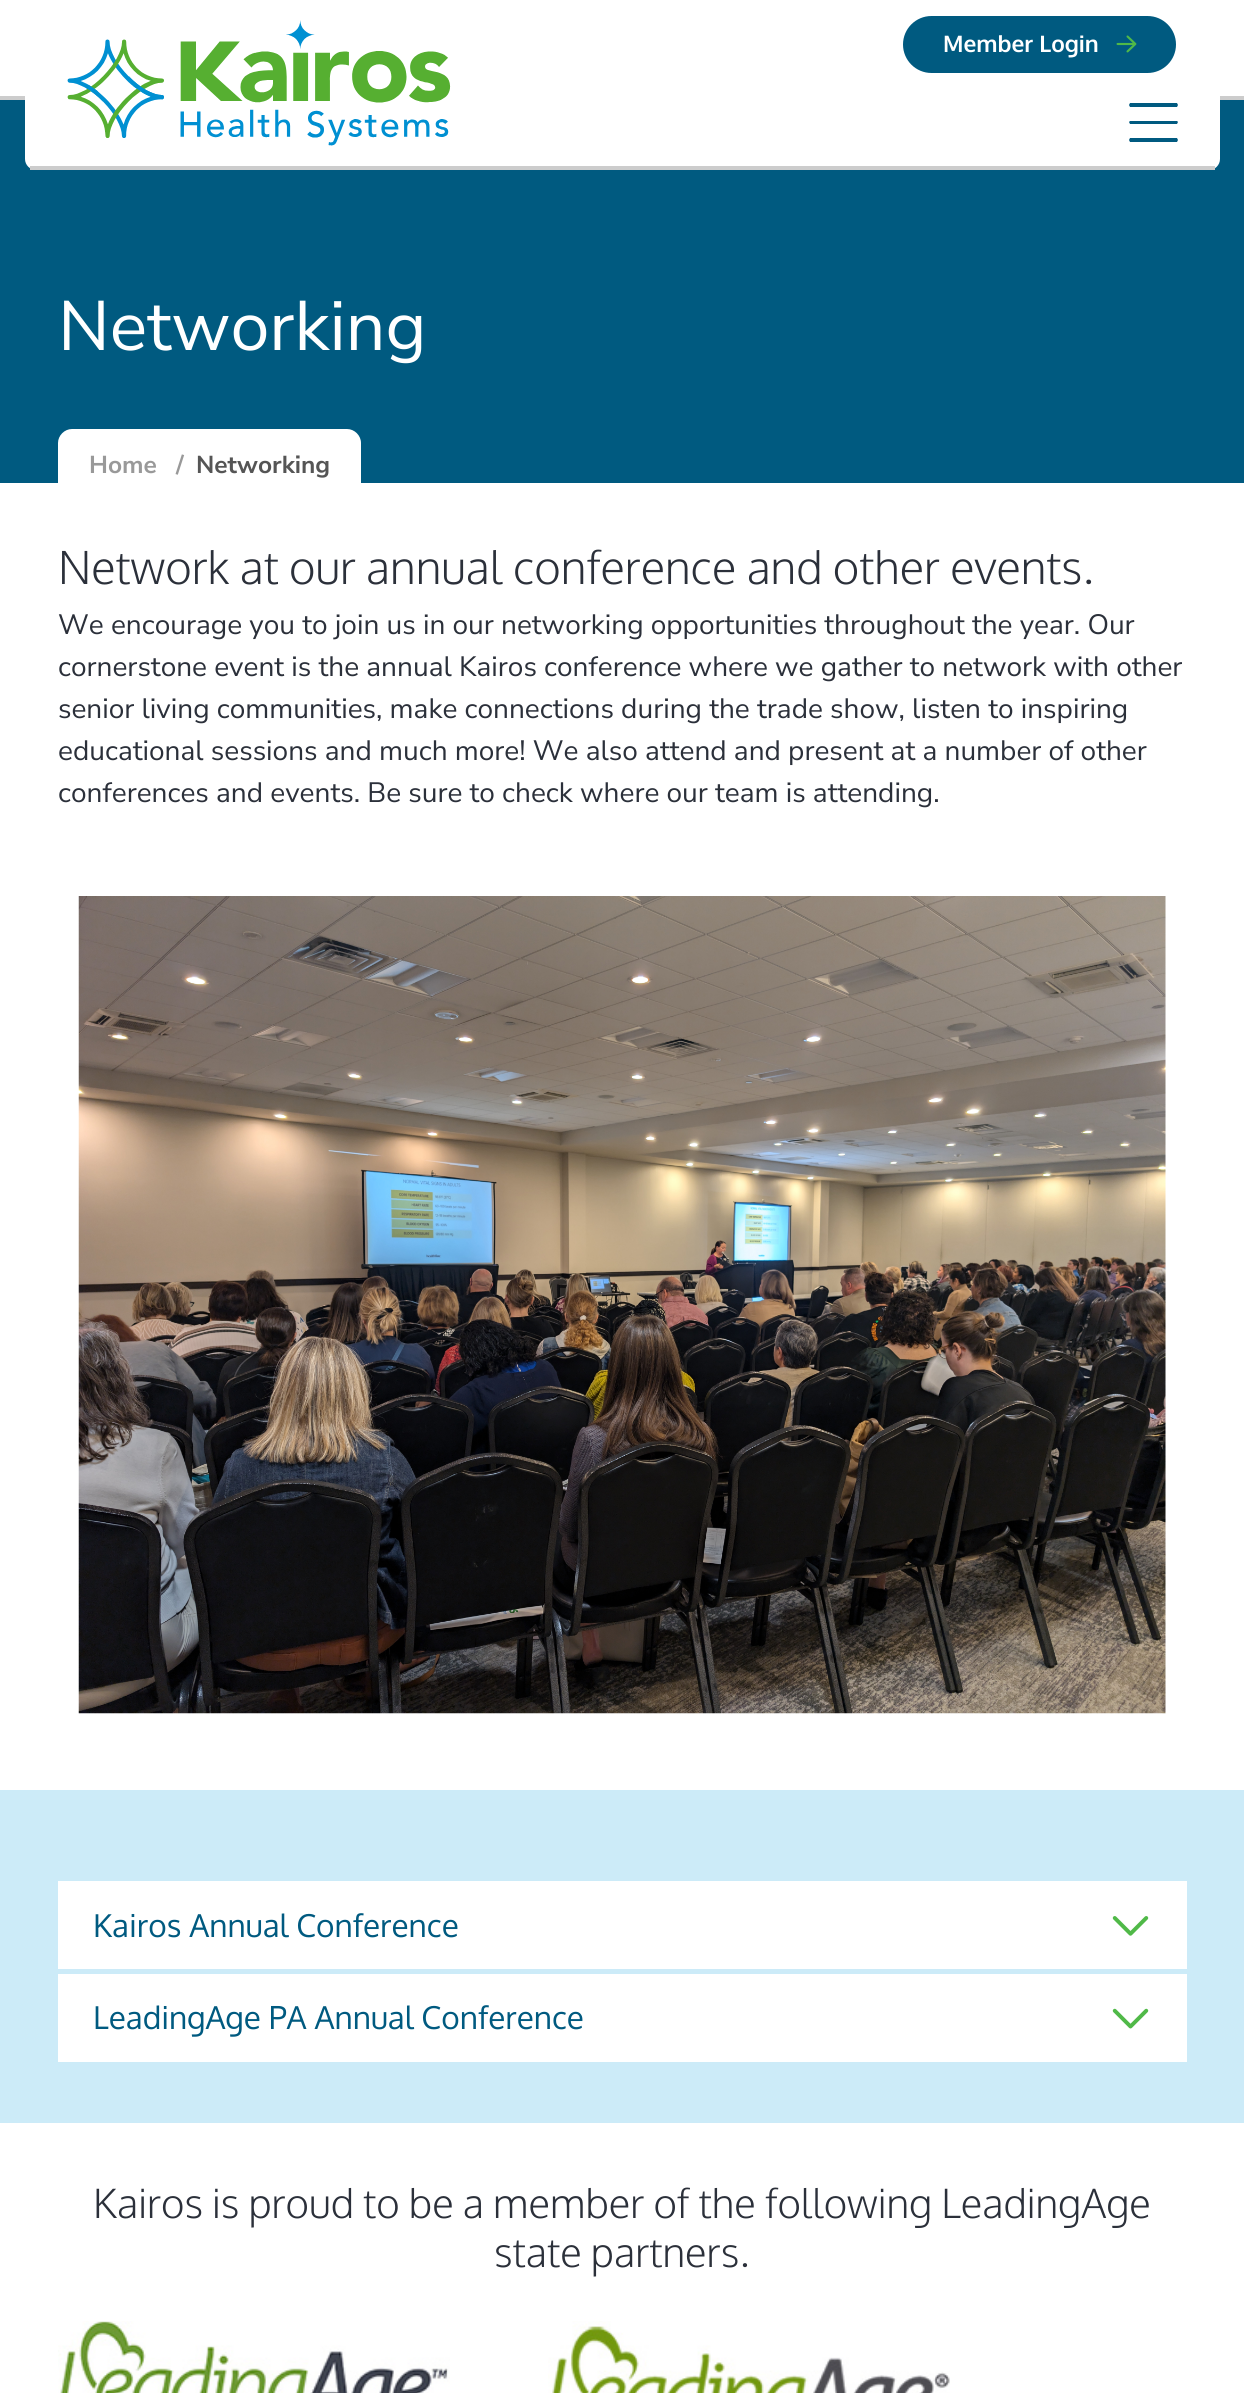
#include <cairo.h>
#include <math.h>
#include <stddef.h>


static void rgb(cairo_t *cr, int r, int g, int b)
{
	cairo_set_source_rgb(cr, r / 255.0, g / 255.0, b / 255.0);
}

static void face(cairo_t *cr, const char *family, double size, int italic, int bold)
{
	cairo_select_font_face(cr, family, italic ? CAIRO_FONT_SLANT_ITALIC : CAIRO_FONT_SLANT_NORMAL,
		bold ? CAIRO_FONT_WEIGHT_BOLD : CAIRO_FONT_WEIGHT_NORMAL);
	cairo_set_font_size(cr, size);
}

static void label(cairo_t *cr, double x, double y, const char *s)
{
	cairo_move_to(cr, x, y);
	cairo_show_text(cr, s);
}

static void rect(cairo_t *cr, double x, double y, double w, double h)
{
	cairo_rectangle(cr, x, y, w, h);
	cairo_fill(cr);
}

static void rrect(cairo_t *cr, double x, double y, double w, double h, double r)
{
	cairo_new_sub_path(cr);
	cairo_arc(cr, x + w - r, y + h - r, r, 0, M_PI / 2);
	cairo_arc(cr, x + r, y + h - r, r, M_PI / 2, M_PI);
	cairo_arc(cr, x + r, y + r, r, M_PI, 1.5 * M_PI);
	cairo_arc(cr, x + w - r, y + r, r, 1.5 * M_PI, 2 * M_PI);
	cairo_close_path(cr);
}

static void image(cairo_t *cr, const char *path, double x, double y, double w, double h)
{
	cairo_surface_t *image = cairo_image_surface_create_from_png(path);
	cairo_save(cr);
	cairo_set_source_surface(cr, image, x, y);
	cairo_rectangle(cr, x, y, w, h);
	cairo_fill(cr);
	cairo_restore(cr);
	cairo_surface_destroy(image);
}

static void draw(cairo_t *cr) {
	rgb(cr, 255, 255, 255);
	cairo_paint(cr);
	rgb(cr, 204, 204, 204);
	rect(cr, 0, 96, 1244, 4);
	rgb(cr, 0, 90, 128);
	rect(cr, 0, 100, 1244, 383);
	rgb(cr, 255, 255, 255);
	cairo_new_path(cr);
	cairo_move_to(cr, 25, 0);
	cairo_line_to(cr, 1220, 0);
	cairo_line_to(cr, 1220, 159);
	cairo_curve_to(cr, 1220, 165, 1215, 170, 1209, 170);
	cairo_line_to(cr, 36, 170);
	cairo_curve_to(cr, 30, 170, 25, 165, 25, 159);
	cairo_close_path(cr);
	cairo_fill(cr);
	rgb(cr, 204, 204, 204);
	rect(cr, 30, 166, 1185, 4);
	image(cr, "image0.png", 67, 20, 384, 126);
	rgb(cr, 0, 90, 128);
	rrect(cr, 902, 15, 275, 59, 29.5);
	cairo_fill_preserve(cr);
	rgb(cr, 255, 255, 255);
	cairo_stroke(cr);
	face(cr, "Oxygen", 22.75, 0, 1);
	label(cr, 943, 52, "Member Login");
	image(cr, "image1.png", 1116, 35, 21, 18);
	rgb(cr, 0, 90, 128);
	cairo_new_path(cr);
	cairo_move_to(cr, 1129, 105);
	cairo_line_to(cr, 1130, 103);
	cairo_line_to(cr, 1177, 103);
	cairo_line_to(cr, 1178, 105);
	cairo_line_to(cr, 1177, 107);
	cairo_line_to(cr, 1130, 107);
	cairo_close_path(cr);
	cairo_move_to(cr, 1129, 122);
	cairo_line_to(cr, 1130, 121);
	cairo_line_to(cr, 1177, 121);
	cairo_line_to(cr, 1178, 122);
	cairo_line_to(cr, 1177, 124);
	cairo_line_to(cr, 1130, 124);
	cairo_close_path(cr);
	cairo_move_to(cr, 1178, 140);
	cairo_line_to(cr, 1177, 142);
	cairo_line_to(cr, 1130, 142);
	cairo_line_to(cr, 1129, 140);
	cairo_line_to(cr, 1130, 138);
	cairo_line_to(cr, 1177, 138);
	cairo_close_path(cr);
	cairo_fill(cr);
	face(cr, "Nunito Sans", 70, 0, 0);
	rgb(cr, 255, 255, 255);
	label(cr, 58, 350, "Networking");
	cairo_new_path(cr);
	cairo_move_to(cr, 72, 429);
	cairo_line_to(cr, 347, 429);
	cairo_curve_to(cr, 354.5, 429, 361, 435.5, 361, 443);
	cairo_line_to(cr, 361, 485);
	cairo_line_to(cr, 58, 485);
	cairo_line_to(cr, 58, 443);
	cairo_curve_to(cr, 58, 435.5, 64.5, 429, 72, 429);
	cairo_close_path(cr);
	cairo_fill(cr);
	face(cr, "Nunito Sans", 24.5, 0, 1);
	rgb(cr, 153, 153, 153);
	label(cr, 89, 473, "Home");
	label(cr, 176, 473, "/");
	rgb(cr, 85, 85, 85);
	label(cr, 196, 473, "Networking");
	face(cr, "Oxygen Light", 45.5, 0, 0);
	rgb(cr, 43, 48, 58);
	label(cr, 58, 584, "Network at our annual conference and other events.");
	face(cr, "Nunito Sans", 28, 0, 0);
	label(cr, 58, 634, "We encourage you to join us in our networking opportunities throughout the year. Our");
	label(cr, 58, 676, "cornerstone event is the annual Kairos conference where we gather to network with other");
	label(cr, 58, 718, "senior living communities, make connections during the trade show, listen to inspiring");
	label(cr, 58, 760, "educational sessions and much more! We also attend and present at a number of other");
	label(cr, 58, 802, "conferences and events. Be sure to check where our team is attending.");
	image(cr, "image2.png", 78, 896, 1088, 818);
	rgb(cr, 204, 235, 248);
	rect(cr, 0, 1790, 1244, 333);
	rgb(cr, 255, 255, 255);
	rect(cr, 58, 1881, 1129, 88);
	face(cr, "Oxygen", 31.5, 0, 0);
	rgb(cr, 0, 90, 128);
	label(cr, 93, 1937, "Kairos Annual Conference");
	image(cr, "image3.png", 1112, 1916, 37, 20);
	rgb(cr, 255, 255, 255);
	rect(cr, 58, 1974, 1129, 88);
	rgb(cr, 0, 90, 128);
	label(cr, 93, 2029, "LeadingAge PA Annual Conference");
	image(cr, "image4.png", 1112, 2008, 37, 21);
	face(cr, "Oxygen Light", 40.25, 0, 0);
	rgb(cr, 43, 48, 58);
	label(cr, 93, 2218, "Kairos is proud to be a member of the following LeadingAge");
	label(cr, 494, 2267, "state partners.");
	image(cr, "image5.png", 58, 2321, 392, 72);
	image(cr, "image6.png", 548, 2321, 402, 72);
}

int main(void) {
	cairo_surface_t *surface = cairo_image_surface_create(CAIRO_FORMAT_RGB24, 1244, 2393);
	cairo_t *cr = cairo_create(surface);
	cairo_font_options_t *options = cairo_font_options_create();
	cairo_font_options_set_hint_metrics(options, CAIRO_HINT_METRICS_OFF);
	cairo_font_options_set_hint_style(options, CAIRO_HINT_STYLE_NONE);
	cairo_set_font_options(cr, options);
	cairo_set_miter_limit(cr, 4);
	draw(cr);
	cairo_surface_write_to_png(surface, "render.png");
	cairo_font_options_destroy(options);
	cairo_destroy(cr);
	cairo_surface_destroy(surface);
	return 0;
}
